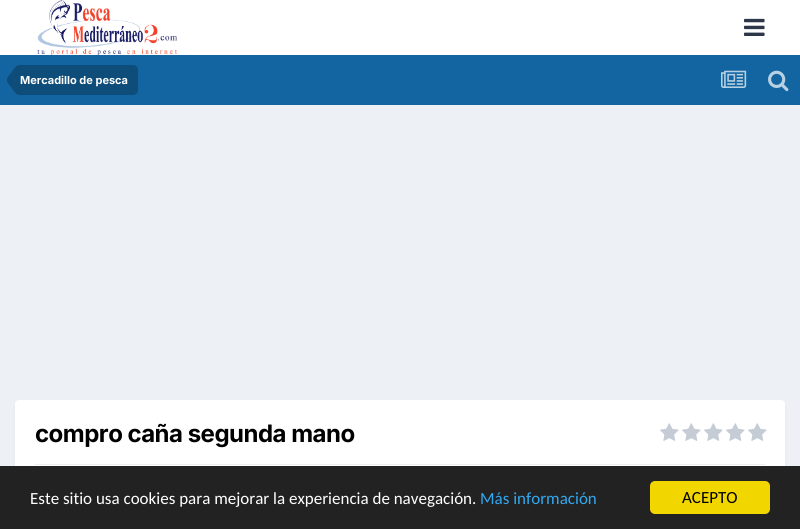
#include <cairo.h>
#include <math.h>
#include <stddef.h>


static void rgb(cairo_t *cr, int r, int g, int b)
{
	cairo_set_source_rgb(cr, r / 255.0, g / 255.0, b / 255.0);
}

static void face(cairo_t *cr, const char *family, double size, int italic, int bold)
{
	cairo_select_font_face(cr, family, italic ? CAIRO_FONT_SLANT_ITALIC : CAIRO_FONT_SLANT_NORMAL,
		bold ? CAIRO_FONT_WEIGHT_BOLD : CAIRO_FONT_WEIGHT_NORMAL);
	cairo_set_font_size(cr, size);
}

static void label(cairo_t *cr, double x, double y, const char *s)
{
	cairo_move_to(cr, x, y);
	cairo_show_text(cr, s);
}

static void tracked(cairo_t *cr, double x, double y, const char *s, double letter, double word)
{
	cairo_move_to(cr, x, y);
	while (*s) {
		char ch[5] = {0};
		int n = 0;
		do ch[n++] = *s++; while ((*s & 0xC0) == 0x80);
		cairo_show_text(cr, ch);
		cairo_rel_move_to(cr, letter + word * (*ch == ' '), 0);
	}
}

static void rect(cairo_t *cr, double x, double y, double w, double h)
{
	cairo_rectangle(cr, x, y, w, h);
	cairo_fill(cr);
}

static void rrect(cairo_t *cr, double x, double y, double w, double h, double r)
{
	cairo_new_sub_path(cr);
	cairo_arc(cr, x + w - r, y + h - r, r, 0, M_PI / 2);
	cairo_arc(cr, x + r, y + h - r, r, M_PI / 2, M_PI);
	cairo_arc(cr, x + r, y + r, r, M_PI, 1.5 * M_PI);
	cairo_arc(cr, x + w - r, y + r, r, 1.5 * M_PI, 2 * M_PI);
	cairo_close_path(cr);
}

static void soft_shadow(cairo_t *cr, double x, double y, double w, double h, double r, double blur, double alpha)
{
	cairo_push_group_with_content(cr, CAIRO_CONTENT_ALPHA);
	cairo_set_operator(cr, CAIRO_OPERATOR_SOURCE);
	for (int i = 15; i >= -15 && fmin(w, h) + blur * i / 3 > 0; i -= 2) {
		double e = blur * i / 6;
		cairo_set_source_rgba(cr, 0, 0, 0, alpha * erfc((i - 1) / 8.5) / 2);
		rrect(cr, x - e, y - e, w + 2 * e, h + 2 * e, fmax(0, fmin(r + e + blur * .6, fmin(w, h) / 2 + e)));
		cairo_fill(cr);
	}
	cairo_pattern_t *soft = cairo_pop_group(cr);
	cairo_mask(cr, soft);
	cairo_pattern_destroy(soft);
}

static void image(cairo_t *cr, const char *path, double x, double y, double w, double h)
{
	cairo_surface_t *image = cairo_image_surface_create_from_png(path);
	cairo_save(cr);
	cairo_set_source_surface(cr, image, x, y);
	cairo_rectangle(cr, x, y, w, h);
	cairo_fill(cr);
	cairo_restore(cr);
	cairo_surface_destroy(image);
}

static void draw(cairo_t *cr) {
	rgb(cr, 237, 240, 244);
	cairo_paint(cr);
	rgb(cr, 255, 255, 255);
	rect(cr, 0, 0, 800, 55);
	image(cr, "image0.png", 37, 0, 140, 55);
	image(cr, "image1.png", 744, 18, 21, 18);
	rgb(cr, 18, 101, 161);
	rect(cr, 0, 55, 800, 50);
	rgb(cr, 14, 76, 121);
	cairo_new_path(cr);
	cairo_move_to(cr, 20, 65);
	cairo_line_to(cr, 133, 65);
	cairo_curve_to(cr, 136, 65, 138, 67, 138, 70);
	cairo_line_to(cr, 138, 90);
	cairo_curve_to(cr, 138, 93, 136, 95, 133, 95);
	cairo_line_to(cr, 20, 95);
	cairo_close_path(cr);
	cairo_fill(cr);
	cairo_new_path(cr);
	cairo_move_to(cr, 20, 80);
	cairo_line_to(cr, 20, 95);
	cairo_curve_to(cr, 15.5, 95, 13.5, 90.5, 11, 87);
	cairo_curve_to(cr, 9.5, 85, 7, 83, 7, 80);
	cairo_close_path(cr);
	cairo_move_to(cr, 20, 80);
	cairo_line_to(cr, 7, 80);
	cairo_curve_to(cr, 7, 77, 9.5, 75, 11, 73);
	cairo_curve_to(cr, 13.5, 69.5, 15.5, 65, 20, 65);
	cairo_close_path(cr);
	cairo_fill(cr);
	face(cr, "Inter", 11, 0, 1);
	rgb(cr, 255, 255, 255);
	label(cr, 20, 84, "Mercadillo de pesca");
	image(cr, "image2.png", 721, 70, 26, 18);
	image(cr, "image3.png", 768, 70, 21, 22);
	rgb(cr, 45, 55, 72);
	soft_shadow(cr, 16, 403, 768, 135, 3, 2, 0.1);
	rgb(cr, 255, 255, 255);
	rrect(cr, 15, 400, 770, 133, 4);
	cairo_fill(cr);
	face(cr, "Inter", 24, 0, 1);
	rgb(cr, 0, 0, 0);
	tracked(cr, 35, 442, "compro caña segunda mano", -0.5, 0);
	image(cr, "image4.png", 660, 423, 19, 18);
	image(cr, "image4.png", 682, 423, 19, 18);
	image(cr, "image4.png", 704, 423, 19, 18);
	image(cr, "image4.png", 726, 423, 19, 18);
	image(cr, "image4.png", 748, 423, 19, 18);
	rgb(cr, 239, 239, 240);
	rect(cr, 35, 464, 730, 1);
	rgb(cr, 34, 34, 34);
	rect(cr, 0, 466, 800, 63);
	face(cr, "Carlito", 17, 0, 0);
	rgb(cr, 255, 255, 255);
	label(cr, 30, 504, "Este sitio usa cookies para mejorar la experiencia de navegación.");
	rgb(cr, 49, 168, 240);
	label(cr, 480, 504, "Más información");
	rgb(cr, 241, 214, 0);
	rrect(cr, 650, 481, 120, 33, 5);
	cairo_fill(cr);
	rgb(cr, 0, 0, 0);
	label(cr, 682, 503, "ACEPTO");
}

int main(void) {
	cairo_surface_t *surface = cairo_image_surface_create(CAIRO_FORMAT_RGB24, 800, 529);
	cairo_t *cr = cairo_create(surface);
	cairo_font_options_t *options = cairo_font_options_create();
	cairo_font_options_set_hint_metrics(options, CAIRO_HINT_METRICS_OFF);
	cairo_font_options_set_hint_style(options, CAIRO_HINT_STYLE_NONE);
	cairo_set_font_options(cr, options);
	cairo_set_miter_limit(cr, 4);
	draw(cr);
	cairo_surface_write_to_png(surface, "render.png");
	cairo_font_options_destroy(options);
	cairo_destroy(cr);
	cairo_surface_destroy(surface);
	return 0;
}
